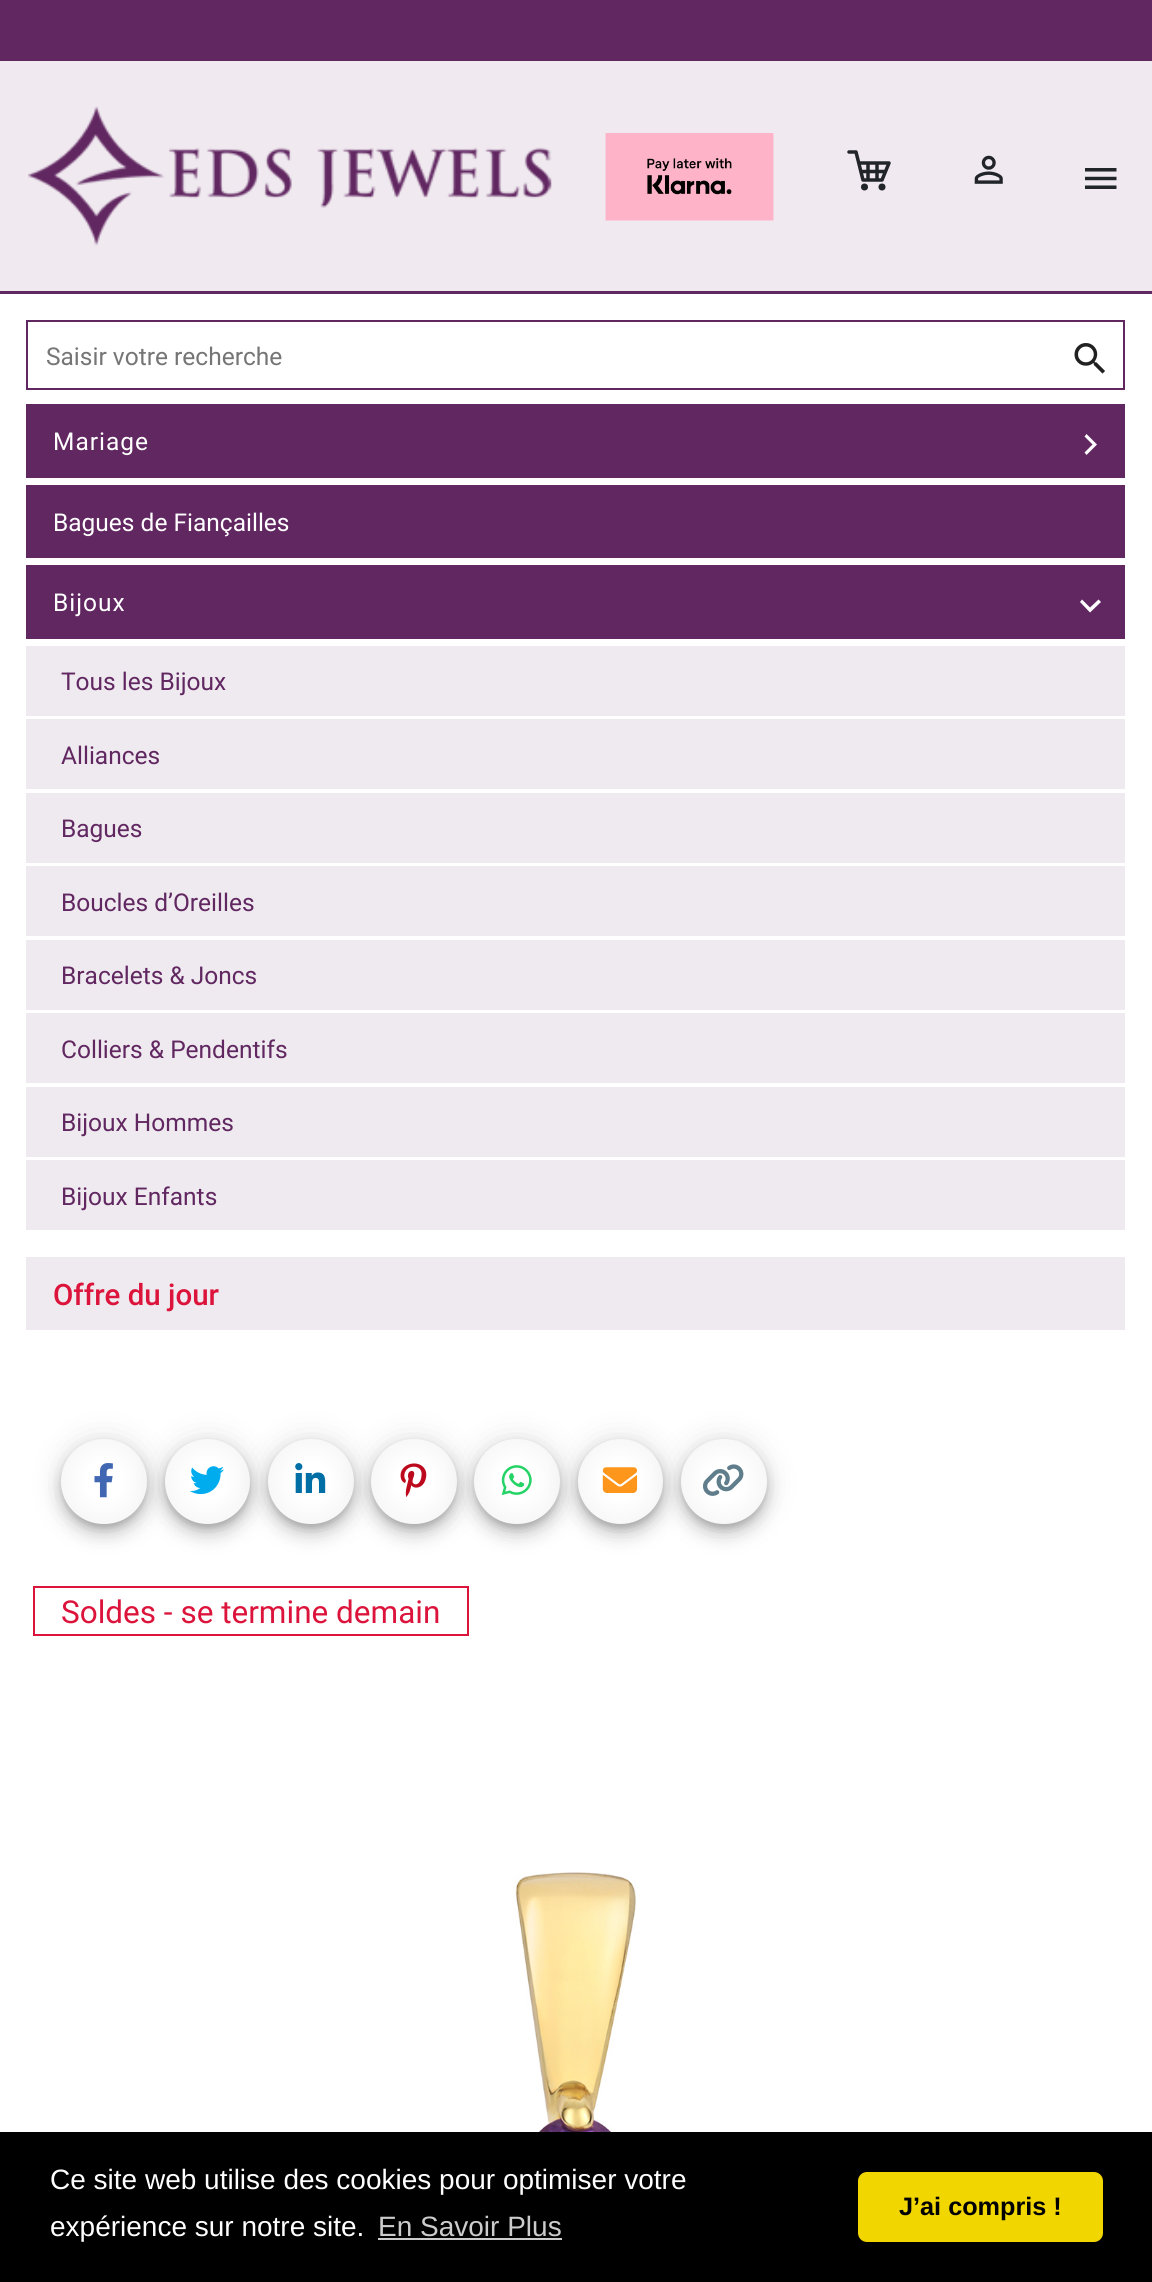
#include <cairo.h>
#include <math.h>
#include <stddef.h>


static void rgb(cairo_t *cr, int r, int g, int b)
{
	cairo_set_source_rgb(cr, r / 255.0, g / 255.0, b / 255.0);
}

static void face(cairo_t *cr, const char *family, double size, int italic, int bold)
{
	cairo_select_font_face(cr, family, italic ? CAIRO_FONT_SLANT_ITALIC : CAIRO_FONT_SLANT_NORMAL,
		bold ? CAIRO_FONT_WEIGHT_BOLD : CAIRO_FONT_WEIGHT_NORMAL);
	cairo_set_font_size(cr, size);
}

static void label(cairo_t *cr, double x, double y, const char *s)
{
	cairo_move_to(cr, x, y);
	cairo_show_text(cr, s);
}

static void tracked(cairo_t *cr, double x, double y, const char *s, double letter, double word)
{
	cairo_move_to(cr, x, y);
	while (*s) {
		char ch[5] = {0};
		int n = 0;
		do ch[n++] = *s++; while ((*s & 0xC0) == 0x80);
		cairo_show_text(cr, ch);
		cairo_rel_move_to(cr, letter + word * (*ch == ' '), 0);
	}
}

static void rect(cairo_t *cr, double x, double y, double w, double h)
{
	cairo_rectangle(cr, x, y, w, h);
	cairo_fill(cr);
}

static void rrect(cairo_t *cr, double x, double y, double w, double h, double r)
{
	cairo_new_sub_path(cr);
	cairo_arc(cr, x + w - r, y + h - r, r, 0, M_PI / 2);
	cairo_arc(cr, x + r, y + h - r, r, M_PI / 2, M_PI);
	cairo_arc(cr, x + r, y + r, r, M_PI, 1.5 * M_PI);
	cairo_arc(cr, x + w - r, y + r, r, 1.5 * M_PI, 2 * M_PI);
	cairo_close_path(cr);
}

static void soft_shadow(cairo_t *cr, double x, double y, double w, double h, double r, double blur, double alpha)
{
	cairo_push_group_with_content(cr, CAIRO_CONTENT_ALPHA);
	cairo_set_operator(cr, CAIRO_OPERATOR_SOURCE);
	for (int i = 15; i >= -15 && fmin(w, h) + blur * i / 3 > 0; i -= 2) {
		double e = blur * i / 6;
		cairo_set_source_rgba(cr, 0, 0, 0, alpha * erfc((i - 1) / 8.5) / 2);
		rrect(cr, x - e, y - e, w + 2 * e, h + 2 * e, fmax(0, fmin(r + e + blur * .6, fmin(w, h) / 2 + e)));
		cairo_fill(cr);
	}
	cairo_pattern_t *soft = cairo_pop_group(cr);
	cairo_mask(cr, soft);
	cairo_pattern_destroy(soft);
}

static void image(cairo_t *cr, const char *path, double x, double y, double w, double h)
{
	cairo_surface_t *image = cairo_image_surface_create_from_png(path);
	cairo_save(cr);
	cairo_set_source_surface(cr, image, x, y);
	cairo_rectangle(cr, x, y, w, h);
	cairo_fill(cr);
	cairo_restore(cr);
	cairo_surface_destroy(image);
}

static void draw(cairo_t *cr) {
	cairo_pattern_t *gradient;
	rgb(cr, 97, 39, 97);
	cairo_paint(cr);
	rgb(cr, 240, 234, 240);
	rect(cr, 0, 61, 1152, 230);
	image(cr, "image0.png", 28, 106, 524, 140);
	image(cr, "image1.png", 605, 133, 169, 88);
	cairo_new_path(cr);
	cairo_move_to(cr, 849, 152);
	cairo_line_to(cr, 856, 152);
	cairo_line_to(cr, 863, 180);
	cairo_line_to(cr, 882, 180);
	cairo_line_to(cr, 889, 163);
	cairo_line_to(cr, 859, 163);
	cairo_move_to(cr, 868, 163);
	cairo_line_to(cr, 868, 180);
	cairo_move_to(cr, 877, 180);
	cairo_line_to(cr, 877, 163);
	cairo_move_to(cr, 863, 171.5);
	cairo_line_to(cr, 885.5, 171.5);
	rgb(cr, 33, 37, 41);
	cairo_set_line_width(cr, 3.5);
	cairo_set_line_cap(cr, CAIRO_LINE_CAP_ROUND);
	cairo_set_line_join(cr, CAIRO_LINE_JOIN_ROUND);
	cairo_stroke(cr);
	cairo_arc(cr, 864.5, 187, 3.5, 0, 2 * M_PI);
	cairo_fill(cr);
	cairo_arc(cr, 882, 187, 3.5, 0, 2 * M_PI);
	cairo_fill(cr);
	image(cr, "image2.png", 974, 155, 29, 29);
	image(cr, "image3.png", 1085, 168, 32, 21);
	rgb(cr, 255, 255, 255);
	rect(cr, 0, 294, 1152, 1838);
	cairo_rectangle(cr, 27, 321, 1097, 68);
	rgb(cr, 97, 39, 97);
	cairo_set_line_width(cr, 2);
	cairo_set_line_cap(cr, CAIRO_LINE_CAP_BUTT);
	cairo_set_line_join(cr, CAIRO_LINE_JOIN_MITER);
	cairo_stroke(cr);
	face(cr, "Roboto", 24.5, 0, 0);
	rgb(cr, 117, 117, 117);
	label(cr, 46, 365, "Saisir votre recherche");
	image(cr, "image4.png", 1074, 343, 31, 31);
	rgb(cr, 97, 39, 97);
	rect(cr, 26, 404, 1099, 74);
	rgb(cr, 255, 255, 255);
	tracked(cr, 53, 450, "Mariage", 1, 0);
	cairo_new_path(cr);
	cairo_move_to(cr, 1086.5, 434);
	cairo_line_to(cr, 1097, 444.5);
	cairo_line_to(cr, 1086.5, 455);
	cairo_line_to(cr, 1084.5, 452.5);
	cairo_line_to(cr, 1092.5, 444.5);
	cairo_line_to(cr, 1084.5, 436.5);
	cairo_close_path(cr);
	cairo_fill(cr);
	rgb(cr, 97, 39, 97);
	rect(cr, 26, 485, 1099, 73);
	rgb(cr, 255, 255, 255);
	label(cr, 53, 531, "Bagues de Fiançailles");
	rgb(cr, 97, 39, 97);
	rect(cr, 26, 565, 1099, 74);
	rgb(cr, 255, 255, 255);
	tracked(cr, 53, 611, "Bijoux", 1, 0);
	cairo_new_path(cr);
	cairo_move_to(cr, 1098.5, 599.5);
	cairo_line_to(cr, 1101, 602);
	cairo_line_to(cr, 1090, 612.5);
	cairo_line_to(cr, 1080, 602);
	cairo_line_to(cr, 1082, 599.5);
	cairo_line_to(cr, 1090, 607.5);
	cairo_close_path(cr);
	cairo_fill(cr);
	rgb(cr, 239, 234, 239);
	rect(cr, 26, 646, 1099, 70);
	rgb(cr, 97, 39, 97);
	label(cr, 61, 690, "Tous les Bijoux");
	rgb(cr, 239, 234, 239);
	rect(cr, 26, 719, 1099, 70);
	rgb(cr, 97, 39, 97);
	label(cr, 61, 764, "Alliances");
	rgb(cr, 239, 234, 239);
	rect(cr, 26, 793, 1099, 70);
	rgb(cr, 97, 39, 97);
	label(cr, 61, 837, "Bagues");
	rgb(cr, 239, 234, 239);
	rect(cr, 26, 866, 1099, 70);
	rgb(cr, 97, 39, 97);
	label(cr, 61, 911, "Boucles d’Oreilles");
	rgb(cr, 239, 234, 239);
	rect(cr, 26, 940, 1099, 70);
	rgb(cr, 97, 39, 97);
	label(cr, 61, 984, "Bracelets & Joncs");
	rgb(cr, 239, 234, 239);
	rect(cr, 26, 1013, 1099, 70);
	rgb(cr, 97, 39, 97);
	label(cr, 61, 1058, "Colliers & Pendentifs");
	rgb(cr, 239, 234, 239);
	rect(cr, 26, 1087, 1099, 70);
	rgb(cr, 97, 39, 97);
	label(cr, 61, 1131, "Bijoux Hommes");
	rgb(cr, 239, 234, 239);
	rect(cr, 26, 1160, 1099, 70);
	rgb(cr, 97, 39, 97);
	label(cr, 61, 1205, "Bijoux Enfants");
	rgb(cr, 239, 234, 239);
	rect(cr, 26, 1257, 1099, 73);
	face(cr, "Roboto Medium", 29.5, 0, 0);
	rgb(cr, 220, 20, 60);
	label(cr, 53, 1305, "Offre du jour");
	rgb(cr, 0, 0, 0);
	soft_shadow(cr, 61, 1440, 86, 86, 43, 16, 0.12);
	soft_shadow(cr, 61, 1449, 86, 86, 43, 9, 0.14);
	soft_shadow(cr, 63, 1446, 82, 82, 41, 4.5, 0.2);
	gradient = cairo_pattern_create_radial(104, 1481, 0, 104, 1481, 61);
	cairo_pattern_add_color_stop_rgba(gradient, 0.3, 1, 1, 1, 1);
	cairo_pattern_add_color_stop_rgba(gradient, 1, 0.949, 0.949, 0.949, 1);
	cairo_set_source(cr, gradient);
	cairo_pattern_destroy(gradient);
	rrect(cr, 61, 1439, 86, 85, 42.5);
	cairo_fill(cr);
	image(cr, "image5.png", 94, 1463, 19, 35);
	rgb(cr, 0, 0, 0);
	soft_shadow(cr, 165, 1440, 85, 86, 42.5, 16, 0.12);
	soft_shadow(cr, 165, 1449, 85, 86, 42.5, 9, 0.14);
	soft_shadow(cr, 166, 1446, 83, 82, 41, 4.5, 0.2);
	gradient = cairo_pattern_create_radial(207, 1481, 0, 207, 1481, 61);
	cairo_pattern_add_color_stop_rgba(gradient, 0.3, 1, 1, 1, 1);
	cairo_pattern_add_color_stop_rgba(gradient, 1, 0.949, 0.949, 0.949, 1);
	cairo_set_source(cr, gradient);
	cairo_pattern_destroy(gradient);
	cairo_arc(cr, 207.5, 1481.5, 42.5, 0, 2 * M_PI);
	cairo_fill(cr);
	image(cr, "image6.png", 190, 1466, 34, 29);
	rgb(cr, 0, 0, 0);
	soft_shadow(cr, 268, 1440, 86, 86, 43, 16, 0.12);
	soft_shadow(cr, 268, 1449, 86, 86, 43, 9, 0.14);
	soft_shadow(cr, 270, 1446, 82, 82, 41, 4.5, 0.2);
	gradient = cairo_pattern_create_radial(311, 1481, 0, 311, 1481, 61);
	cairo_pattern_add_color_stop_rgba(gradient, 0.3, 1, 1, 1, 1);
	cairo_pattern_add_color_stop_rgba(gradient, 1, 0.949, 0.949, 0.949, 1);
	cairo_set_source(cr, gradient);
	cairo_pattern_destroy(gradient);
	rrect(cr, 268, 1439, 86, 85, 42.5);
	cairo_fill(cr);
	image(cr, "image7.png", 295, 1463, 31, 30);
	rgb(cr, 0, 0, 0);
	soft_shadow(cr, 371, 1440, 86, 86, 43, 16, 0.12);
	soft_shadow(cr, 371, 1449, 86, 86, 43, 9, 0.14);
	soft_shadow(cr, 373, 1446, 82, 82, 41, 4.5, 0.2);
	gradient = cairo_pattern_create_radial(414, 1481, 0, 414, 1481, 61);
	cairo_pattern_add_color_stop_rgba(gradient, 0.3, 1, 1, 1, 1);
	cairo_pattern_add_color_stop_rgba(gradient, 1, 0.949, 0.949, 0.949, 1);
	cairo_set_source(cr, gradient);
	cairo_pattern_destroy(gradient);
	rrect(cr, 371, 1439, 86, 85, 42.5);
	cairo_fill(cr);
	image(cr, "image8.png", 400, 1463, 27, 34);
	rgb(cr, 0, 0, 0);
	soft_shadow(cr, 474, 1440, 86, 86, 43, 16, 0.12);
	soft_shadow(cr, 474, 1449, 86, 86, 43, 9, 0.14);
	soft_shadow(cr, 476, 1446, 82, 82, 41, 4.5, 0.2);
	gradient = cairo_pattern_create_radial(517, 1481, 0, 517, 1481, 61);
	cairo_pattern_add_color_stop_rgba(gradient, 0.3, 1, 1, 1, 1);
	cairo_pattern_add_color_stop_rgba(gradient, 1, 0.949, 0.949, 0.949, 1);
	cairo_set_source(cr, gradient);
	cairo_pattern_destroy(gradient);
	rrect(cr, 474, 1439, 86, 85, 42.5);
	cairo_fill(cr);
	image(cr, "image9.png", 501, 1465, 31, 31);
	rgb(cr, 0, 0, 0);
	soft_shadow(cr, 578, 1440, 85, 86, 42.5, 16, 0.12);
	soft_shadow(cr, 578, 1449, 85, 86, 42.5, 9, 0.14);
	soft_shadow(cr, 579, 1446, 83, 82, 41, 4.5, 0.2);
	gradient = cairo_pattern_create_radial(620, 1481, 0, 620, 1481, 61);
	cairo_pattern_add_color_stop_rgba(gradient, 0.3, 1, 1, 1, 1);
	cairo_pattern_add_color_stop_rgba(gradient, 1, 0.949, 0.949, 0.949, 1);
	cairo_set_source(cr, gradient);
	cairo_pattern_destroy(gradient);
	cairo_arc(cr, 620.5, 1481.5, 42.5, 0, 2 * M_PI);
	cairo_fill(cr);
	image(cr, "image10.png", 602, 1467, 36, 26);
	rgb(cr, 0, 0, 0);
	soft_shadow(cr, 681, 1440, 86, 86, 43, 16, 0.12);
	soft_shadow(cr, 681, 1449, 86, 86, 43, 9, 0.14);
	soft_shadow(cr, 683, 1446, 82, 82, 41, 4.5, 0.2);
	gradient = cairo_pattern_create_radial(724, 1481, 0, 724, 1481, 61);
	cairo_pattern_add_color_stop_rgba(gradient, 0.3, 1, 1, 1, 1);
	cairo_pattern_add_color_stop_rgba(gradient, 1, 0.949, 0.949, 0.949, 1);
	cairo_set_source(cr, gradient);
	cairo_pattern_destroy(gradient);
	rrect(cr, 681, 1439, 86, 85, 42.5);
	cairo_fill(cr);
	image(cr, "image11.png", 703, 1464, 41, 32);
	cairo_rectangle(cr, 34, 1587, 434, 48);
	rgb(cr, 220, 20, 60);
	cairo_stroke(cr);
	face(cr, "Roboto", 31.5, 0, 0);
	label(cr, 61, 1623, "Soldes - se termine demain");
	image(cr, "image12.png", 461, 1872, 227, 260);
	rgb(cr, 0, 0, 0);
	rect(cr, 0, 2132, 1152, 150);
	face(cr, "Liberation Sans", 28, 0, 0);
	rgb(cr, 255, 255, 255);
	label(cr, 50, 2189, "Ce site web utilise des cookies pour optimiser votre");
	label(cr, 50, 2236, "expérience sur notre site.");
	rgb(cr, 204, 204, 204);
	label(cr, 378, 2236, "En Savoir Plus");
	rect(cr, 378, 2238, 184, 2);
	rgb(cr, 241, 214, 0);
	rrect(cr, 858, 2172, 245, 70, 9);
	cairo_fill(cr);
	face(cr, "Liberation Sans", 25.25, 0, 1);
	rgb(cr, 0, 0, 0);
	label(cr, 899, 2215, "J’ai compris !");
}

int main(void) {
	cairo_surface_t *surface = cairo_image_surface_create(CAIRO_FORMAT_RGB24, 1152, 2282);
	cairo_t *cr = cairo_create(surface);
	cairo_font_options_t *options = cairo_font_options_create();
	cairo_font_options_set_hint_metrics(options, CAIRO_HINT_METRICS_OFF);
	cairo_font_options_set_hint_style(options, CAIRO_HINT_STYLE_NONE);
	cairo_set_font_options(cr, options);
	cairo_set_miter_limit(cr, 4);
	draw(cr);
	cairo_surface_write_to_png(surface, "render.png");
	cairo_font_options_destroy(options);
	cairo_destroy(cr);
	cairo_surface_destroy(surface);
	return 0;
}
